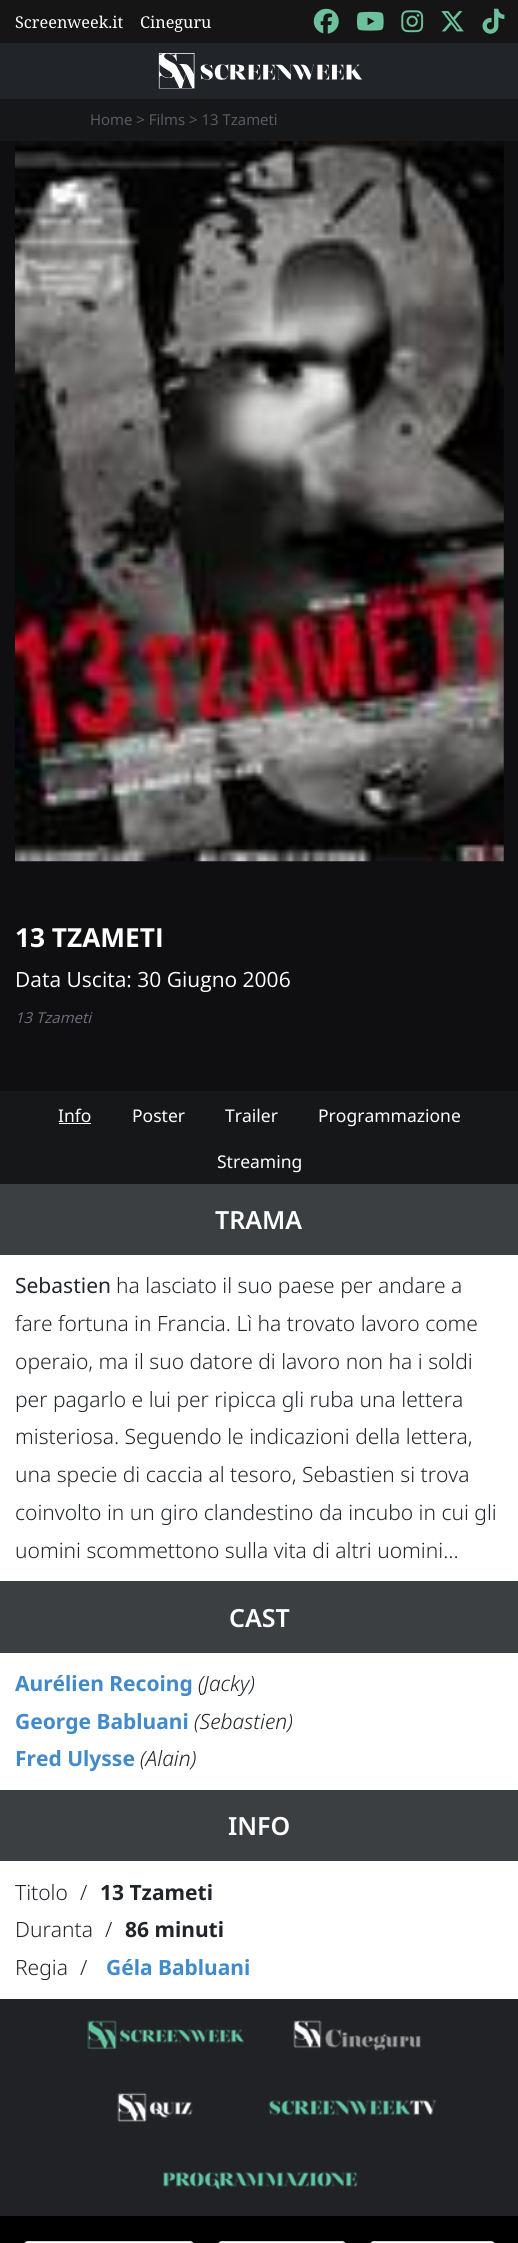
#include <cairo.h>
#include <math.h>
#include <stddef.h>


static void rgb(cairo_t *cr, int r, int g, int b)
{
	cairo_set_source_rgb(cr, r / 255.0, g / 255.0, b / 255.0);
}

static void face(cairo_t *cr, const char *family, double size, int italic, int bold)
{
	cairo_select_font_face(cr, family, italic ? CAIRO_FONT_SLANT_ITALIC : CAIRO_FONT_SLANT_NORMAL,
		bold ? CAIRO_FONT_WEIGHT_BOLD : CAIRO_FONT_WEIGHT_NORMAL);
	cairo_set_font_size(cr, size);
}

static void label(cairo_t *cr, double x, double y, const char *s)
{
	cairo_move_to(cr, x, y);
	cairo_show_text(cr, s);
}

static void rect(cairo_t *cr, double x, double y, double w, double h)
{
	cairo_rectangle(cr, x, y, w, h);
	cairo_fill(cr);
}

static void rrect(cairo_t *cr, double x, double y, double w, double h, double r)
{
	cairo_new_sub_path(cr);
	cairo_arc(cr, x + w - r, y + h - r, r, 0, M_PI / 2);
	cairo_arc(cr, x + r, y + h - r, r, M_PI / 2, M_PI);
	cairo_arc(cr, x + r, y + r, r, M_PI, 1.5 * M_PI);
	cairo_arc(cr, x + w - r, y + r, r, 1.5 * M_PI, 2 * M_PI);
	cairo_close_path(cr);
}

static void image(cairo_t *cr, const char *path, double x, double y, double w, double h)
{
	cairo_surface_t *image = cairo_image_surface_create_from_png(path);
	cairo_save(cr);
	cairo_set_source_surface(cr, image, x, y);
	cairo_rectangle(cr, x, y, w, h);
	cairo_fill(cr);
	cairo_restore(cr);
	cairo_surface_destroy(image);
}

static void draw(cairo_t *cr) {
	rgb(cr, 255, 255, 255);
	cairo_paint(cr);
	rgb(cr, 21, 21, 21);
	rect(cr, 0, 0, 518, 43);
	face(cr, "Noto Serif", 16.25, 0, 0);
	rgb(cr, 255, 255, 255);
	label(cr, 15, 28, "Screenweek.it");
	label(cr, 140, 28, "Cineguru");
	image(cr, "image0.png", 313, 8, 26, 26);
	image(cr, "image1.png", 357, 11, 27, 20);
	image(cr, "image2.png", 401, 10, 23, 23);
	image(cr, "image3.png", 441, 11, 23, 21);
	image(cr, "image4.png", 482, 8, 23, 26);
	rgb(cr, 33, 37, 41);
	rect(cr, 0, 43, 518, 56);
	image(cr, "image5.png", 158, 53, 204, 36);
	rgb(cr, 22, 23, 25);
	rect(cr, 0, 99, 518, 42);
	face(cr, "Open Sans", 15, 0, 0);
	rgb(cr, 92, 94, 99);
	label(cr, 90, 125, "Home > Films > 13 Tzameti");
	rgb(cr, 15, 15, 17);
	rect(cr, 0, 141, 518, 950);
	image(cr, "image6.png", 15, 141, 489, 721);
	face(cr, "Open Sans", 26.25, 0, 1);
	rgb(cr, 255, 255, 255);
	label(cr, 15, 947, "13 TZAMETI");
	face(cr, "Open Sans", 21, 0, 0);
	label(cr, 15, 987, "Data Uscita: 30 Giugno 2006");
	face(cr, "Open Sans", 15, 1, 0);
	rgb(cr, 109, 112, 121);
	label(cr, 15, 1023, "13 Tzameti");
	rgb(cr, 22, 23, 25);
	rect(cr, 0, 1091, 518, 93);
	face(cr, "Noto Sans", 17.5, 0, 0);
	rgb(cr, 255, 255, 255);
	label(cr, 58, 1122, "Info");
	rect(cr, 59, 1123, 32, 1);
	label(cr, 132, 1122, "Poster");
	label(cr, 225, 1122, "Trailer");
	label(cr, 318, 1122, "Programmazione");
	label(cr, 217, 1168, "Streaming");
	rgb(cr, 59, 63, 66);
	rect(cr, 0, 1184, 518, 71);
	face(cr, "Noto Sans SemiBold", 25, 0, 0);
	rgb(cr, 255, 255, 255);
	label(cr, 215, 1229, "TRAMA");
	face(cr, "Noto Sans", 21, 0, 0);
	rgb(cr, 33, 37, 41);
	label(cr, 15, 1293, "Sebastien");
	face(cr, "Noto Sans Light", 21, 0, 0);
	label(cr, 116, 1293, "ha lasciato il suo paese per andare a");
	label(cr, 15, 1331, "fare fortuna in Francia. Lì ha trovato lavoro come");
	label(cr, 15, 1369, "operaio, ma il suo datore di lavoro non ha i soldi");
	label(cr, 15, 1407, "per pagarlo e lui per ripicca gli ruba una lettera");
	label(cr, 15, 1444, "misteriosa. Seguendo le indicazioni della lettera,");
	label(cr, 15, 1482, "una specie di caccia al tesoro, Sebastien si trova");
	label(cr, 15, 1520, "coinvolto in un giro clandestino da incubo in cui gli");
	label(cr, 15, 1558, "uomini scommettono sulla vita di altri uomini…");
	rgb(cr, 59, 63, 66);
	rect(cr, 0, 1581, 518, 72);
	face(cr, "Noto Sans SemiBold", 25, 0, 0);
	rgb(cr, 255, 255, 255);
	label(cr, 229, 1627, "CAST");
	face(cr, "Noto Sans", 21, 0, 1);
	rgb(cr, 66, 139, 202);
	label(cr, 15, 1691, "Aurélien Recoing");
	face(cr, "Noto Sans Light", 21, 1, 0);
	rgb(cr, 33, 37, 41);
	label(cr, 198, 1691, "(Jacky)");
	face(cr, "Noto Sans", 21, 0, 1);
	rgb(cr, 66, 139, 202);
	label(cr, 15, 1729, "George Babluani");
	face(cr, "Noto Sans Light", 21, 1, 0);
	rgb(cr, 33, 37, 41);
	label(cr, 194, 1729, "(Sebastien)");
	face(cr, "Noto Sans", 21, 0, 1);
	rgb(cr, 66, 139, 202);
	label(cr, 15, 1766, "Fred Ulysse");
	face(cr, "Noto Sans Light", 21, 1, 0);
	rgb(cr, 33, 37, 41);
	label(cr, 140, 1766, "(Alain)");
	rgb(cr, 59, 63, 66);
	rect(cr, 0, 1790, 518, 71);
	face(cr, "Noto Sans SemiBold", 25, 0, 0);
	rgb(cr, 255, 255, 255);
	label(cr, 228, 1835, "INFO");
	face(cr, "Noto Sans Light", 21, 0, 0);
	rgb(cr, 33, 37, 41);
	label(cr, 15, 1900, "Titolo");
	label(cr, 80, 1900, "/");
	face(cr, "Noto Sans", 21, 0, 1);
	label(cr, 100, 1900, "13 Tzameti");
	face(cr, "Noto Sans Light", 21, 0, 0);
	label(cr, 15, 1937, "Duranta");
	label(cr, 105, 1937, "/");
	face(cr, "Noto Sans", 21, 0, 1);
	label(cr, 125, 1937, "86 minuti");
	face(cr, "Noto Sans Light", 21, 0, 0);
	label(cr, 15, 1975, "Regia");
	label(cr, 80, 1975, "/");
	face(cr, "Noto Sans", 21, 0, 1);
	rgb(cr, 66, 139, 202);
	label(cr, 106, 1975, "Géla Babluani");
	rgb(cr, 33, 34, 38);
	rect(cr, 0, 1999, 518, 217);
	image(cr, "image7.png", 87, 2020, 157, 30);
	image(cr, "image8.png", 293, 2020, 129, 31);
	image(cr, "image9.png", 117, 2092, 76, 30);
	image(cr, "image10.png", 268, 2098, 169, 18);
	image(cr, "image11.png", 162, 2172, 196, 18);
	rgb(cr, 0, 0, 0);
	rect(cr, 0, 2216, 518, 27);
	rgb(cr, 255, 255, 255);
	rrect(cr, 24, 2241, 170, 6, 4);
	cairo_fill(cr);
	rrect(cr, 24.5, 2241.5, 169, 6, 3.5);
	cairo_set_source_rgba(cr, 0, 0, 0, 0.15);
	cairo_set_line_width(cr, 1);
	cairo_stroke(cr);
	rgb(cr, 255, 255, 255);
	rrect(cr, 218, 2241, 128, 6, 4);
	cairo_fill(cr);
	rrect(cr, 218.5, 2241.5, 127, 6, 3.5);
	cairo_set_source_rgba(cr, 0, 0, 0, 0.15);
	cairo_stroke(cr);
	rgb(cr, 255, 255, 255);
	rrect(cr, 370, 2241, 125, 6, 4);
	cairo_fill(cr);
	rrect(cr, 370.5, 2241.5, 124, 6, 3.5);
	cairo_set_source_rgba(cr, 0, 0, 0, 0.15);
	cairo_stroke(cr);
}

int main(void) {
	cairo_surface_t *surface = cairo_image_surface_create(CAIRO_FORMAT_RGB24, 518, 2243);
	cairo_t *cr = cairo_create(surface);
	cairo_font_options_t *options = cairo_font_options_create();
	cairo_font_options_set_hint_metrics(options, CAIRO_HINT_METRICS_OFF);
	cairo_font_options_set_hint_style(options, CAIRO_HINT_STYLE_NONE);
	cairo_set_font_options(cr, options);
	cairo_set_miter_limit(cr, 4);
	draw(cr);
	cairo_surface_write_to_png(surface, "render.png");
	cairo_font_options_destroy(options);
	cairo_destroy(cr);
	cairo_surface_destroy(surface);
	return 0;
}
